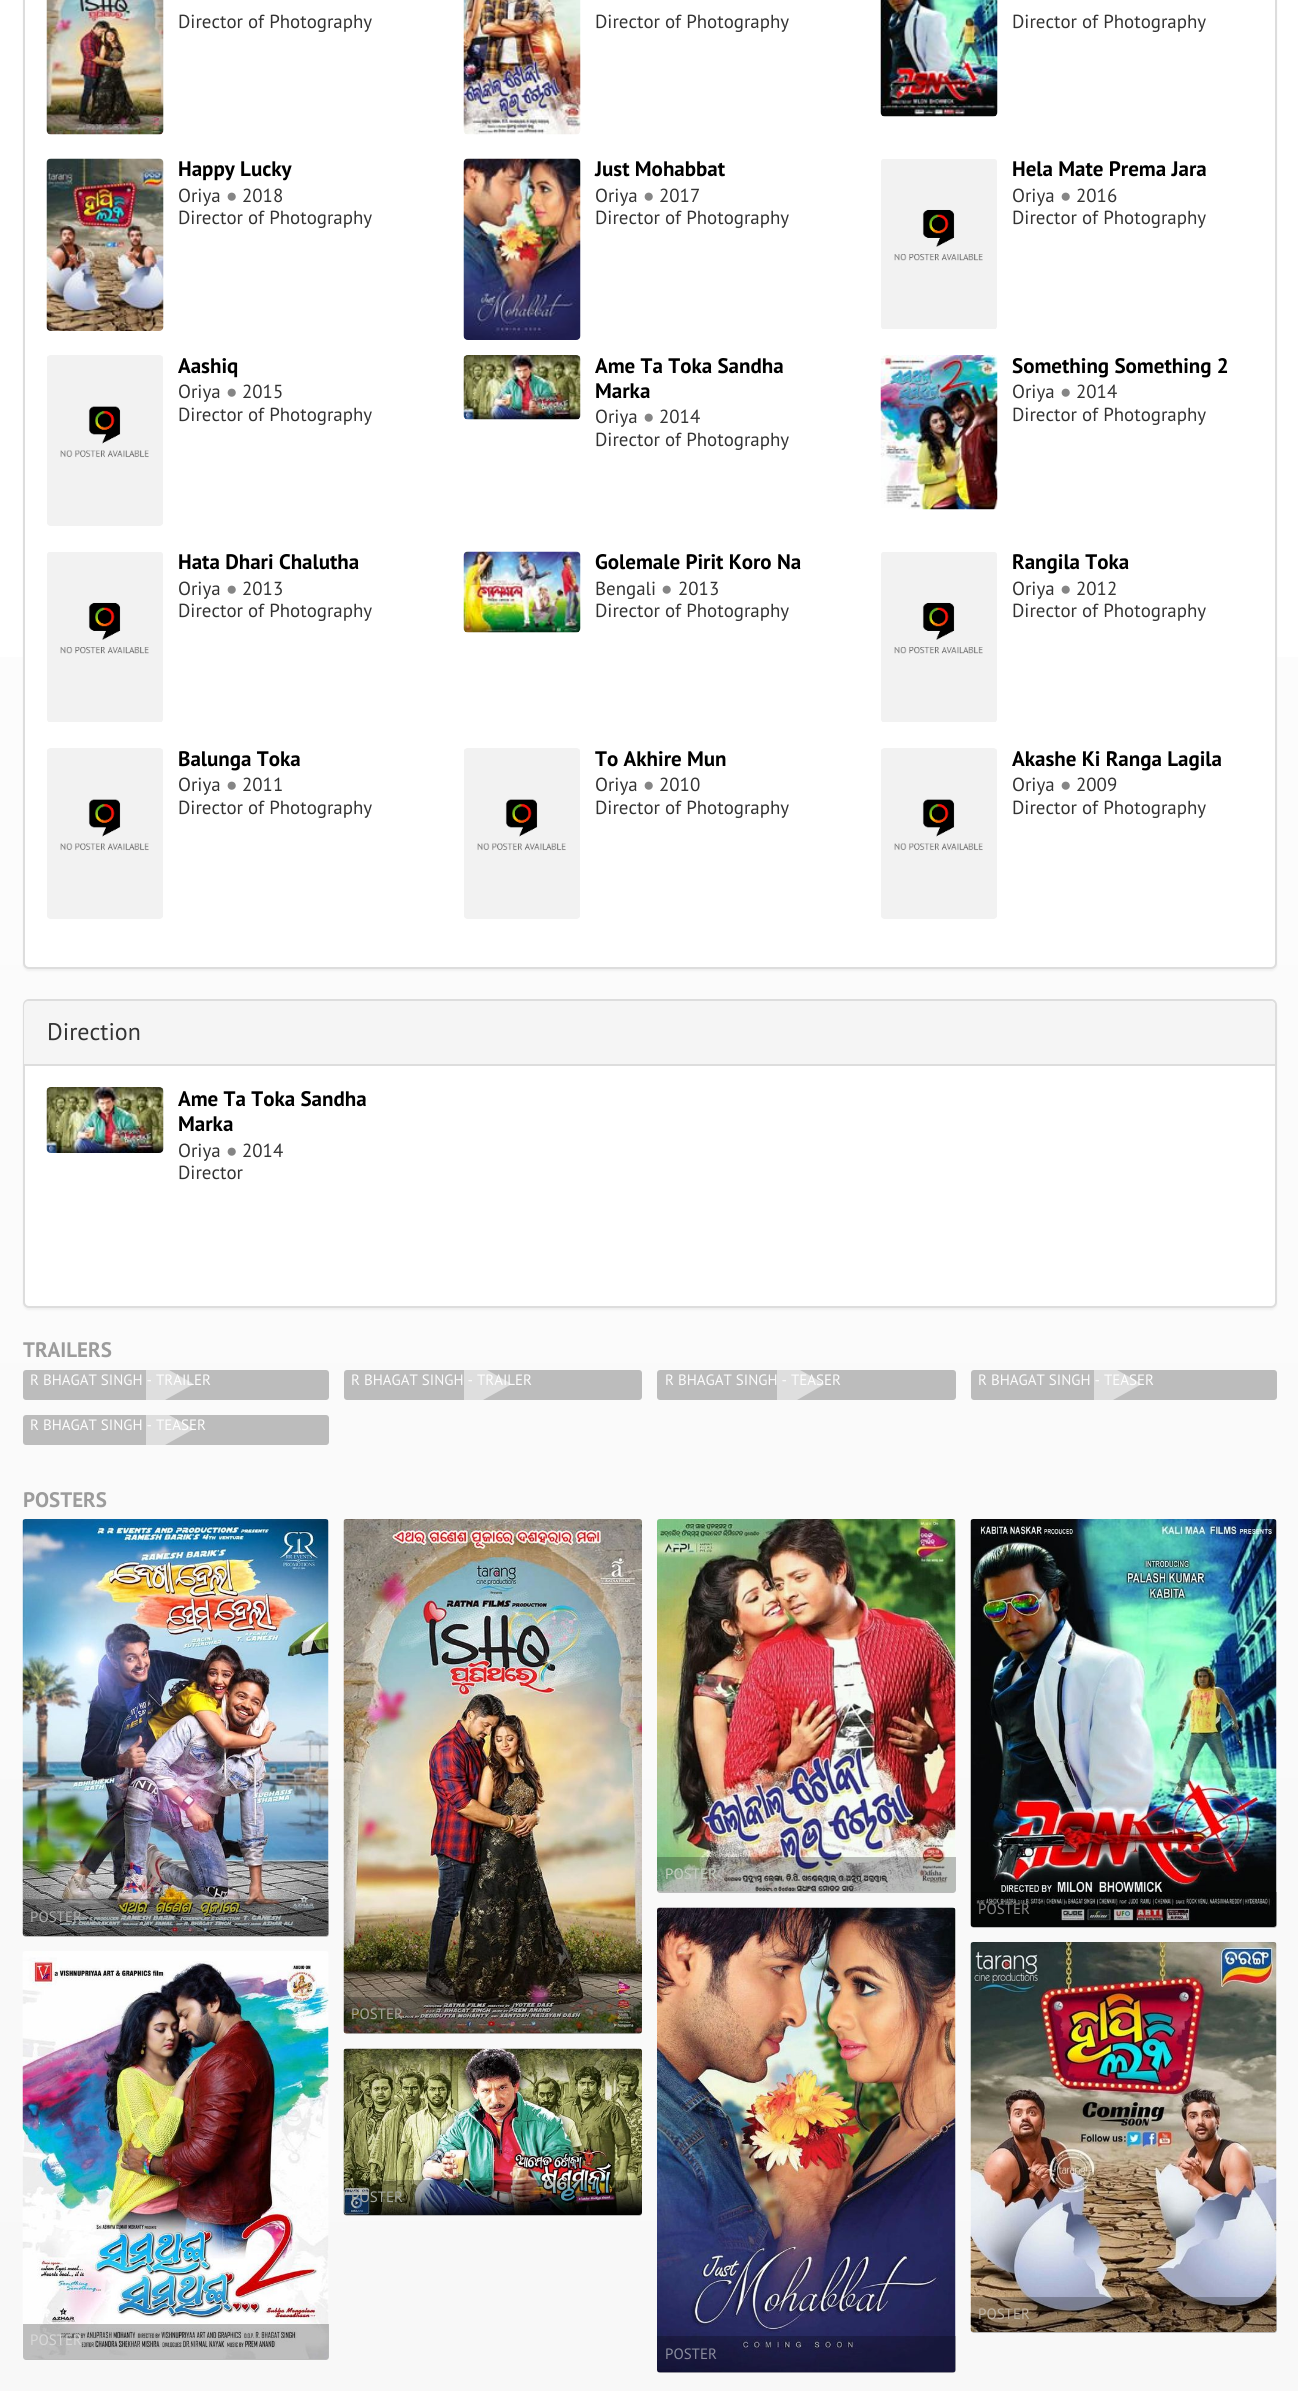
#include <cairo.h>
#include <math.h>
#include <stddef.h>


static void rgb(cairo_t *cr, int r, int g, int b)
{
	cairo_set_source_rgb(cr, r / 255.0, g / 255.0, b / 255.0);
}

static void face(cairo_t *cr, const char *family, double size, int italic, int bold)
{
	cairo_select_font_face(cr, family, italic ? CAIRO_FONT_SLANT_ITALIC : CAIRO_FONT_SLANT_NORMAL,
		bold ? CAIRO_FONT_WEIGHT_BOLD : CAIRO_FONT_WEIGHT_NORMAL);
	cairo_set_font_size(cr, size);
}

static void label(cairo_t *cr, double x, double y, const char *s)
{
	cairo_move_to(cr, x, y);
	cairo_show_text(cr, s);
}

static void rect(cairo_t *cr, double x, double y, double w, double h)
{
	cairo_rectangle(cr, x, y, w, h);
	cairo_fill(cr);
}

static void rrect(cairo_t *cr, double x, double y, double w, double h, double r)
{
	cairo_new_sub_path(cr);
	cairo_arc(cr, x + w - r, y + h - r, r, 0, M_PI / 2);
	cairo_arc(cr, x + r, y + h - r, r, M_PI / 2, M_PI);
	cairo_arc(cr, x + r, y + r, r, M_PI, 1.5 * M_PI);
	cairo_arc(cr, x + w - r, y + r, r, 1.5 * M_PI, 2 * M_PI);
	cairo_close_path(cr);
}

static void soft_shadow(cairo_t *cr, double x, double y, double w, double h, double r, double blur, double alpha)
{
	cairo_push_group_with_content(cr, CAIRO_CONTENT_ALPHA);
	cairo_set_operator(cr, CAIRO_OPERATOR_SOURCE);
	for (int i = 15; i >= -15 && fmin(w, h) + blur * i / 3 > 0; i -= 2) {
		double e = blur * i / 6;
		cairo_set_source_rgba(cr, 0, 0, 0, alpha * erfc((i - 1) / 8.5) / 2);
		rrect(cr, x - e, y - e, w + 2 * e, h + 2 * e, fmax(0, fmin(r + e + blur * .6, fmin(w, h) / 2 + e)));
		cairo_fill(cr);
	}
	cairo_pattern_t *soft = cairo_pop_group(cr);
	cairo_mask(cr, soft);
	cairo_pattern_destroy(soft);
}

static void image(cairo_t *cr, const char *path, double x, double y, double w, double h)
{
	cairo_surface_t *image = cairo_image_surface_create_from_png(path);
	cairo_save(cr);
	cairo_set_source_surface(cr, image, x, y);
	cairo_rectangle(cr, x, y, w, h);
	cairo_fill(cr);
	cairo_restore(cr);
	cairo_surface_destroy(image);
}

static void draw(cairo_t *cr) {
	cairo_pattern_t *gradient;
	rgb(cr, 255, 255, 255);
	cairo_paint(cr);
	gradient = cairo_pattern_create_linear(649, 0, 650, 2391);
	cairo_pattern_add_color_stop_rgba(gradient, 0, 1, 1, 1, 1);
	cairo_pattern_add_color_stop_rgba(gradient, 0.33, 0.988, 0.988, 0.988, 1);
	cairo_pattern_add_color_stop_rgba(gradient, 0.67, 0.98, 0.98, 0.98, 1);
	cairo_pattern_add_color_stop_rgba(gradient, 1, 0.973, 0.973, 0.973, 1);
	cairo_set_source(cr, gradient);
	cairo_pattern_destroy(gradient);
	rect(cr, 0, 657, 1298, 1734);
	rgb(cr, 0, 0, 0);
	soft_shadow(cr, 23, -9, 1254, 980, 6, 1, 0.05);
	rgb(cr, 255, 255, 255);
	rrect(cr, 24, -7, 1252, 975, 5);
	cairo_fill_preserve(cr);
	rgb(cr, 221, 221, 221);
	cairo_stroke(cr);
	image(cr, "image0.png", 46, 0, 118, 135);
	face(cr, "PT Sans", 18.9, 0, 0);
	rgb(cr, 51, 51, 51);
	label(cr, 178, 28, "Director of Photography");
	image(cr, "image1.png", 463, 0, 118, 135);
	label(cr, 595, 28, "Director of Photography");
	image(cr, "image2.png", 880, 0, 118, 117);
	label(cr, 1012, 28, "Director of Photography");
	image(cr, "image3.png", 46, 158, 118, 173);
	face(cr, "PT Sans", 21, 0, 1);
	rgb(cr, 0, 0, 0);
	label(cr, 178, 176, "Happy Lucky");
	face(cr, "PT Sans", 18.9, 0, 0);
	rgb(cr, 51, 51, 51);
	label(cr, 178, 202, "Oriya");
	face(cr, "Liberation Serif", 18.9, 0, 0);
	rgb(cr, 133, 133, 133);
	label(cr, 226, 202, "●");
	face(cr, "PT Sans", 18.9, 0, 0);
	rgb(cr, 51, 51, 51);
	label(cr, 242, 202, "2018");
	label(cr, 178, 224, "Director of Photography");
	image(cr, "image4.png", 463, 158, 118, 182);
	face(cr, "PT Sans", 21, 0, 1);
	rgb(cr, 0, 0, 0);
	label(cr, 595, 176, "Just Mohabbat");
	face(cr, "PT Sans", 18.9, 0, 0);
	rgb(cr, 51, 51, 51);
	label(cr, 595, 202, "Oriya");
	face(cr, "Liberation Serif", 18.9, 0, 0);
	rgb(cr, 133, 133, 133);
	label(cr, 643, 202, "●");
	face(cr, "PT Sans", 18.9, 0, 0);
	rgb(cr, 51, 51, 51);
	label(cr, 659, 202, "2017");
	label(cr, 595, 224, "Director of Photography");
	image(cr, "image5.png", 881, 159, 116, 170);
	face(cr, "PT Sans", 21, 0, 1);
	rgb(cr, 0, 0, 0);
	label(cr, 1012, 176, "Hela Mate Prema Jara");
	face(cr, "PT Sans", 18.9, 0, 0);
	rgb(cr, 51, 51, 51);
	label(cr, 1012, 202, "Oriya");
	face(cr, "Liberation Serif", 18.9, 0, 0);
	rgb(cr, 133, 133, 133);
	label(cr, 1060, 202, "●");
	face(cr, "PT Sans", 18.9, 0, 0);
	rgb(cr, 51, 51, 51);
	label(cr, 1076, 202, "2016");
	label(cr, 1012, 224, "Director of Photography");
	image(cr, "image6.png", 47, 355, 116, 171);
	face(cr, "PT Sans", 21, 0, 1);
	rgb(cr, 0, 0, 0);
	label(cr, 178, 373, "Aashiq");
	face(cr, "PT Sans", 18.9, 0, 0);
	rgb(cr, 51, 51, 51);
	label(cr, 178, 398, "Oriya");
	face(cr, "Liberation Serif", 18.9, 0, 0);
	rgb(cr, 133, 133, 133);
	label(cr, 226, 398, "●");
	face(cr, "PT Sans", 18.9, 0, 0);
	rgb(cr, 51, 51, 51);
	label(cr, 242, 398, "2015");
	label(cr, 178, 421, "Director of Photography");
	image(cr, "image7.png", 463, 355, 118, 65);
	face(cr, "PT Sans", 21, 0, 1);
	rgb(cr, 0, 0, 0);
	label(cr, 595, 373, "Ame Ta Toka Sandha");
	label(cr, 595, 398, "Marka");
	face(cr, "PT Sans", 18.9, 0, 0);
	rgb(cr, 51, 51, 51);
	label(cr, 595, 423, "Oriya");
	face(cr, "Liberation Serif", 18.9, 0, 0);
	rgb(cr, 133, 133, 133);
	label(cr, 643, 423, "●");
	face(cr, "PT Sans", 18.9, 0, 0);
	rgb(cr, 51, 51, 51);
	label(cr, 659, 423, "2014");
	label(cr, 595, 446, "Director of Photography");
	image(cr, "image8.png", 880, 355, 118, 155);
	face(cr, "PT Sans", 21, 0, 1);
	rgb(cr, 0, 0, 0);
	label(cr, 1012, 373, "Something Something 2");
	face(cr, "PT Sans", 18.9, 0, 0);
	rgb(cr, 51, 51, 51);
	label(cr, 1012, 398, "Oriya");
	face(cr, "Liberation Serif", 18.9, 0, 0);
	rgb(cr, 133, 133, 133);
	label(cr, 1060, 398, "●");
	face(cr, "PT Sans", 18.9, 0, 0);
	rgb(cr, 51, 51, 51);
	label(cr, 1076, 398, "2014");
	label(cr, 1012, 421, "Director of Photography");
	image(cr, "image5.png", 47, 552, 116, 170);
	face(cr, "PT Sans", 21, 0, 1);
	rgb(cr, 0, 0, 0);
	label(cr, 178, 569, "Hata Dhari Chalutha");
	face(cr, "PT Sans", 18.9, 0, 0);
	rgb(cr, 51, 51, 51);
	label(cr, 178, 595, "Oriya");
	face(cr, "Liberation Serif", 18.9, 0, 0);
	rgb(cr, 133, 133, 133);
	label(cr, 226, 595, "●");
	face(cr, "PT Sans", 18.9, 0, 0);
	rgb(cr, 51, 51, 51);
	label(cr, 242, 595, "2013");
	label(cr, 178, 617, "Director of Photography");
	image(cr, "image9.png", 463, 551, 118, 82);
	face(cr, "PT Sans", 21, 0, 1);
	rgb(cr, 0, 0, 0);
	label(cr, 595, 569, "Golemale Pirit Koro Na");
	face(cr, "PT Sans", 18.9, 0, 0);
	rgb(cr, 51, 51, 51);
	label(cr, 595, 595, "Bengali");
	face(cr, "Liberation Serif", 18.9, 0, 0);
	rgb(cr, 133, 133, 133);
	label(cr, 661, 595, "●");
	face(cr, "PT Sans", 18.9, 0, 0);
	rgb(cr, 51, 51, 51);
	label(cr, 678, 595, "2013");
	label(cr, 595, 617, "Director of Photography");
	image(cr, "image5.png", 881, 552, 116, 170);
	face(cr, "PT Sans", 21, 0, 1);
	rgb(cr, 0, 0, 0);
	label(cr, 1012, 569, "Rangila Toka");
	face(cr, "PT Sans", 18.9, 0, 0);
	rgb(cr, 51, 51, 51);
	label(cr, 1012, 595, "Oriya");
	face(cr, "Liberation Serif", 18.9, 0, 0);
	rgb(cr, 133, 133, 133);
	label(cr, 1060, 595, "●");
	face(cr, "PT Sans", 18.9, 0, 0);
	rgb(cr, 51, 51, 51);
	label(cr, 1076, 595, "2012");
	label(cr, 1012, 617, "Director of Photography");
	image(cr, "image6.png", 47, 748, 116, 171);
	face(cr, "PT Sans", 21, 0, 1);
	rgb(cr, 0, 0, 0);
	label(cr, 178, 766, "Balunga Toka");
	face(cr, "PT Sans", 18.9, 0, 0);
	rgb(cr, 51, 51, 51);
	label(cr, 178, 791, "Oriya");
	face(cr, "Liberation Serif", 18.9, 0, 0);
	rgb(cr, 133, 133, 133);
	label(cr, 226, 791, "●");
	face(cr, "PT Sans", 18.9, 0, 0);
	rgb(cr, 51, 51, 51);
	label(cr, 242, 791, "2011");
	label(cr, 178, 814, "Director of Photography");
	image(cr, "image10.png", 464, 748, 116, 171);
	face(cr, "PT Sans", 21, 0, 1);
	rgb(cr, 0, 0, 0);
	label(cr, 595, 766, "To Akhire Mun");
	face(cr, "PT Sans", 18.9, 0, 0);
	rgb(cr, 51, 51, 51);
	label(cr, 595, 791, "Oriya");
	face(cr, "Liberation Serif", 18.9, 0, 0);
	rgb(cr, 133, 133, 133);
	label(cr, 643, 791, "●");
	face(cr, "PT Sans", 18.9, 0, 0);
	rgb(cr, 51, 51, 51);
	label(cr, 659, 791, "2010");
	label(cr, 595, 814, "Director of Photography");
	image(cr, "image6.png", 881, 748, 116, 171);
	face(cr, "PT Sans", 21, 0, 1);
	rgb(cr, 0, 0, 0);
	label(cr, 1012, 766, "Akashe Ki Ranga Lagila");
	face(cr, "PT Sans", 18.9, 0, 0);
	rgb(cr, 51, 51, 51);
	label(cr, 1012, 791, "Oriya");
	face(cr, "Liberation Serif", 18.9, 0, 0);
	rgb(cr, 133, 133, 133);
	label(cr, 1060, 791, "●");
	face(cr, "PT Sans", 18.9, 0, 0);
	rgb(cr, 51, 51, 51);
	label(cr, 1076, 791, "2009");
	label(cr, 1012, 814, "Director of Photography");
	rgb(cr, 0, 0, 0);
	soft_shadow(cr, 23, 1001, 1254, 309, 6, 1, 0.05);
	rgb(cr, 255, 255, 255);
	rrect(cr, 24, 1000, 1252, 307, 5);
	cairo_fill_preserve(cr);
	rgb(cr, 221, 221, 221);
	cairo_stroke(cr);
	rgb(cr, 245, 245, 245);
	cairo_new_path(cr);
	cairo_move_to(cr, 29, 1001);
	cairo_line_to(cr, 1270, 1001);
	cairo_curve_to(cr, 1273, 1001, 1275, 1003, 1275, 1006);
	cairo_line_to(cr, 1275, 1065);
	cairo_line_to(cr, 24, 1065);
	cairo_line_to(cr, 24, 1006);
	cairo_curve_to(cr, 24, 1003, 26, 1001, 29, 1001);
	cairo_close_path(cr);
	cairo_fill(cr);
	rgb(cr, 221, 221, 221);
	rect(cr, 24, 1064, 1251, 2);
	face(cr, "PT Sans", 24, 0, 0);
	rgb(cr, 51, 51, 51);
	label(cr, 47, 1040, "Direction");
	image(cr, "image11.png", 46, 1087, 118, 66);
	face(cr, "PT Sans", 21, 0, 1);
	rgb(cr, 0, 0, 0);
	label(cr, 178, 1106, "Ame Ta Toka Sandha");
	label(cr, 178, 1131, "Marka");
	face(cr, "PT Sans", 18.9, 0, 0);
	rgb(cr, 51, 51, 51);
	label(cr, 178, 1157, "Oriya");
	face(cr, "Liberation Serif", 18.9, 0, 0);
	rgb(cr, 133, 133, 133);
	label(cr, 226, 1157, "●");
	face(cr, "PT Sans", 18.9, 0, 0);
	rgb(cr, 51, 51, 51);
	label(cr, 242, 1157, "2014");
	label(cr, 178, 1179, "Director");
	face(cr, "PT Sans", 21, 0, 1);
	rgb(cr, 156, 156, 156);
	label(cr, 23, 1357, "TRAILERS");
	rgb(cr, 188, 188, 188);
	rrect(cr, 23, 1370, 306, 30, 3);
	cairo_fill(cr);
	face(cr, "PT Sans", 15, 0, 0);
	rgb(cr, 253, 253, 253);
	label(cr, 30, 1385, "R BHAGAT SINGH - TRAILER");
	cairo_set_source_rgba(cr, 1, 1, 1, 0.5);
	cairo_new_path(cr);
	cairo_move_to(cr, 192, 1385);
	cairo_line_to(cr, 165, 1400);
	cairo_line_to(cr, 146, 1400);
	cairo_line_to(cr, 146, 1370);
	cairo_line_to(cr, 169, 1370);
	cairo_line_to(cr, 192, 1383);
	cairo_curve_to(cr, 193, 1384, 193, 1385, 192, 1385);
	cairo_close_path(cr);
	cairo_fill(cr);
	rgb(cr, 188, 188, 188);
	rrect(cr, 23, 1415, 306, 30, 3);
	cairo_fill(cr);
	rgb(cr, 253, 253, 253);
	label(cr, 30, 1430, "R BHAGAT SINGH - TEASER");
	cairo_set_source_rgba(cr, 1, 1, 1, 0.5);
	cairo_new_path(cr);
	cairo_move_to(cr, 192, 1430);
	cairo_line_to(cr, 165, 1445);
	cairo_line_to(cr, 146, 1445);
	cairo_line_to(cr, 146, 1415);
	cairo_line_to(cr, 169, 1415);
	cairo_line_to(cr, 192, 1428);
	cairo_curve_to(cr, 193, 1429, 193, 1430, 192, 1430);
	cairo_close_path(cr);
	cairo_fill(cr);
	rgb(cr, 188, 188, 188);
	rrect(cr, 344, 1370, 298, 30, 3);
	cairo_fill(cr);
	rgb(cr, 253, 253, 253);
	label(cr, 351, 1385, "R BHAGAT SINGH - TRAILER");
	cairo_set_source_rgba(cr, 1, 1, 1, 0.5);
	cairo_new_path(cr);
	cairo_move_to(cr, 510, 1385);
	cairo_line_to(cr, 483, 1400);
	cairo_line_to(cr, 464, 1400);
	cairo_line_to(cr, 464, 1370);
	cairo_line_to(cr, 487, 1370);
	cairo_line_to(cr, 510, 1383);
	cairo_curve_to(cr, 511, 1384, 511, 1385, 510, 1385);
	cairo_close_path(cr);
	cairo_fill(cr);
	rgb(cr, 188, 188, 188);
	rrect(cr, 657, 1370, 299, 30, 3);
	cairo_fill(cr);
	rgb(cr, 253, 253, 253);
	label(cr, 665, 1385, "R BHAGAT SINGH - TEASER");
	cairo_set_source_rgba(cr, 1, 1, 1, 0.5);
	cairo_new_path(cr);
	cairo_move_to(cr, 823, 1385);
	cairo_line_to(cr, 797, 1400);
	cairo_line_to(cr, 777, 1400);
	cairo_line_to(cr, 777, 1370);
	cairo_line_to(cr, 800, 1370);
	cairo_line_to(cr, 823, 1383);
	cairo_curve_to(cr, 824, 1384, 824, 1385, 823, 1385);
	cairo_close_path(cr);
	cairo_fill(cr);
	rgb(cr, 188, 188, 188);
	rrect(cr, 971, 1370, 306, 30, 3);
	cairo_fill(cr);
	rgb(cr, 253, 253, 253);
	label(cr, 978, 1385, "R BHAGAT SINGH - TEASER");
	cairo_set_source_rgba(cr, 1, 1, 1, 0.5);
	cairo_new_path(cr);
	cairo_move_to(cr, 1140, 1385);
	cairo_line_to(cr, 1113, 1400);
	cairo_line_to(cr, 1094, 1400);
	cairo_line_to(cr, 1094, 1370);
	cairo_line_to(cr, 1117, 1370);
	cairo_line_to(cr, 1140, 1383);
	cairo_curve_to(cr, 1141, 1384, 1141, 1385, 1140, 1385);
	cairo_close_path(cr);
	cairo_fill(cr);
	face(cr, "PT Sans", 21, 0, 1);
	rgb(cr, 156, 156, 156);
	label(cr, 23, 1507, "POSTERS");
	image(cr, "image12.png", 22, 1519, 307, 417);
	cairo_set_source_rgba(cr, 0, 0, 0, 0.25);
	cairo_new_path(cr);
	cairo_move_to(cr, 23, 1899);
	cairo_line_to(cr, 329, 1899);
	cairo_line_to(cr, 329, 1934);
	cairo_curve_to(cr, 329, 1935.5, 327.5, 1937, 326, 1937);
	cairo_line_to(cr, 26, 1937);
	cairo_curve_to(cr, 24.5, 1937, 23, 1935.5, 23, 1934);
	cairo_close_path(cr);
	cairo_fill(cr);
	face(cr, "PT Sans", 15, 0, 0);
	rgb(cr, 173, 173, 173);
	label(cr, 30, 1922, "POSTER");
	image(cr, "image13.png", 22, 1951, 307, 408);
	cairo_set_source_rgba(cr, 0, 0, 0, 0.25);
	cairo_new_path(cr);
	cairo_move_to(cr, 23, 2324);
	cairo_line_to(cr, 329, 2324);
	cairo_line_to(cr, 329, 2357);
	cairo_curve_to(cr, 329, 2358.5, 327.5, 2360, 326, 2360);
	cairo_line_to(cr, 26, 2360);
	cairo_curve_to(cr, 24.5, 2360, 23, 2358.5, 23, 2357);
	cairo_close_path(cr);
	cairo_fill(cr);
	rgb(cr, 216, 216, 216);
	label(cr, 30, 2345, "POSTER");
	image(cr, "image14.png", 343, 1519, 299, 515);
	cairo_set_source_rgba(cr, 0, 0, 0, 0.25);
	cairo_new_path(cr);
	cairo_move_to(cr, 344, 1997);
	cairo_line_to(cr, 642, 1997);
	cairo_line_to(cr, 642, 2031);
	cairo_curve_to(cr, 642, 2032.5, 640.5, 2034, 639, 2034);
	cairo_line_to(cr, 347, 2034);
	cairo_curve_to(cr, 345.5, 2034, 344, 2032.5, 344, 2031);
	cairo_close_path(cr);
	cairo_fill(cr);
	rgb(cr, 166, 165, 153);
	label(cr, 351, 2019, "POSTER");
	image(cr, "image15.png", 343, 2048, 299, 167);
	cairo_set_source_rgba(cr, 0, 0, 0, 0.25);
	cairo_new_path(cr);
	cairo_move_to(cr, 344, 2180);
	cairo_line_to(cr, 642, 2180);
	cairo_line_to(cr, 642, 2213);
	cairo_curve_to(cr, 642, 2214.5, 640.5, 2216, 639, 2216);
	cairo_line_to(cr, 347, 2216);
	cairo_curve_to(cr, 345.5, 2216, 344, 2214.5, 344, 2213);
	cairo_close_path(cr);
	cairo_fill(cr);
	rgb(cr, 166, 170, 164);
	label(cr, 351, 2202, "POSTER");
	image(cr, "image16.png", 657, 1519, 299, 373);
	cairo_set_source_rgba(cr, 0, 0, 0, 0.25);
	cairo_new_path(cr);
	cairo_move_to(cr, 657, 1857);
	cairo_line_to(cr, 956, 1857);
	cairo_line_to(cr, 956, 1890);
	cairo_curve_to(cr, 956, 1891.5, 954.5, 1893, 953, 1893);
	cairo_line_to(cr, 660, 1893);
	cairo_curve_to(cr, 658.5, 1893, 657, 1891.5, 657, 1890);
	cairo_close_path(cr);
	cairo_fill(cr);
	rgb(cr, 197, 206, 194);
	label(cr, 665, 1879, "POSTER");
	image(cr, "image17.png", 657, 1907, 299, 466);
	cairo_set_source_rgba(cr, 0, 0, 0, 0.25);
	cairo_new_path(cr);
	cairo_move_to(cr, 657, 2336);
	cairo_line_to(cr, 956, 2336);
	cairo_line_to(cr, 956, 2370);
	cairo_curve_to(cr, 956, 2371.5, 954.5, 2373, 953, 2373);
	cairo_line_to(cr, 660, 2373);
	cairo_curve_to(cr, 658.5, 2373, 657, 2371.5, 657, 2370);
	cairo_close_path(cr);
	cairo_fill(cr);
	rgb(cr, 139, 140, 158);
	label(cr, 665, 2359, "POSTER");
	image(cr, "image18.png", 970, 1519, 307, 408);
	cairo_set_source_rgba(cr, 0, 0, 0, 0.25);
	cairo_new_path(cr);
	cairo_move_to(cr, 971, 1892);
	cairo_line_to(cr, 1277, 1892);
	cairo_line_to(cr, 1277, 1925);
	cairo_curve_to(cr, 1277, 1926.5, 1275.5, 1928, 1274, 1928);
	cairo_line_to(cr, 974, 1928);
	cairo_curve_to(cr, 972.5, 1928, 971, 1926.5, 971, 1925);
	cairo_close_path(cr);
	cairo_fill(cr);
	rgb(cr, 133, 133, 133);
	label(cr, 978, 1914, "POSTER");
	image(cr, "image19.png", 970, 1942, 307, 390);
	cairo_set_source_rgba(cr, 0, 0, 0, 0.25);
	cairo_new_path(cr);
	cairo_move_to(cr, 971, 2297);
	cairo_line_to(cr, 1277, 2297);
	cairo_line_to(cr, 1277, 2330);
	cairo_curve_to(cr, 1277, 2331.5, 1275.5, 2333, 1274, 2333);
	cairo_line_to(cr, 974, 2333);
	cairo_curve_to(cr, 972.5, 2333, 971, 2331.5, 971, 2330);
	cairo_close_path(cr);
	cairo_fill(cr);
	rgb(cr, 191, 180, 167);
	label(cr, 978, 2319, "POSTER");
}

int main(void) {
	cairo_surface_t *surface = cairo_image_surface_create(CAIRO_FORMAT_RGB24, 1298, 2391);
	cairo_t *cr = cairo_create(surface);
	cairo_font_options_t *options = cairo_font_options_create();
	cairo_font_options_set_hint_metrics(options, CAIRO_HINT_METRICS_OFF);
	cairo_font_options_set_hint_style(options, CAIRO_HINT_STYLE_NONE);
	cairo_set_font_options(cr, options);
	cairo_set_miter_limit(cr, 4);
	draw(cr);
	cairo_surface_write_to_png(surface, "render.png");
	cairo_font_options_destroy(options);
	cairo_destroy(cr);
	cairo_surface_destroy(surface);
	return 0;
}
